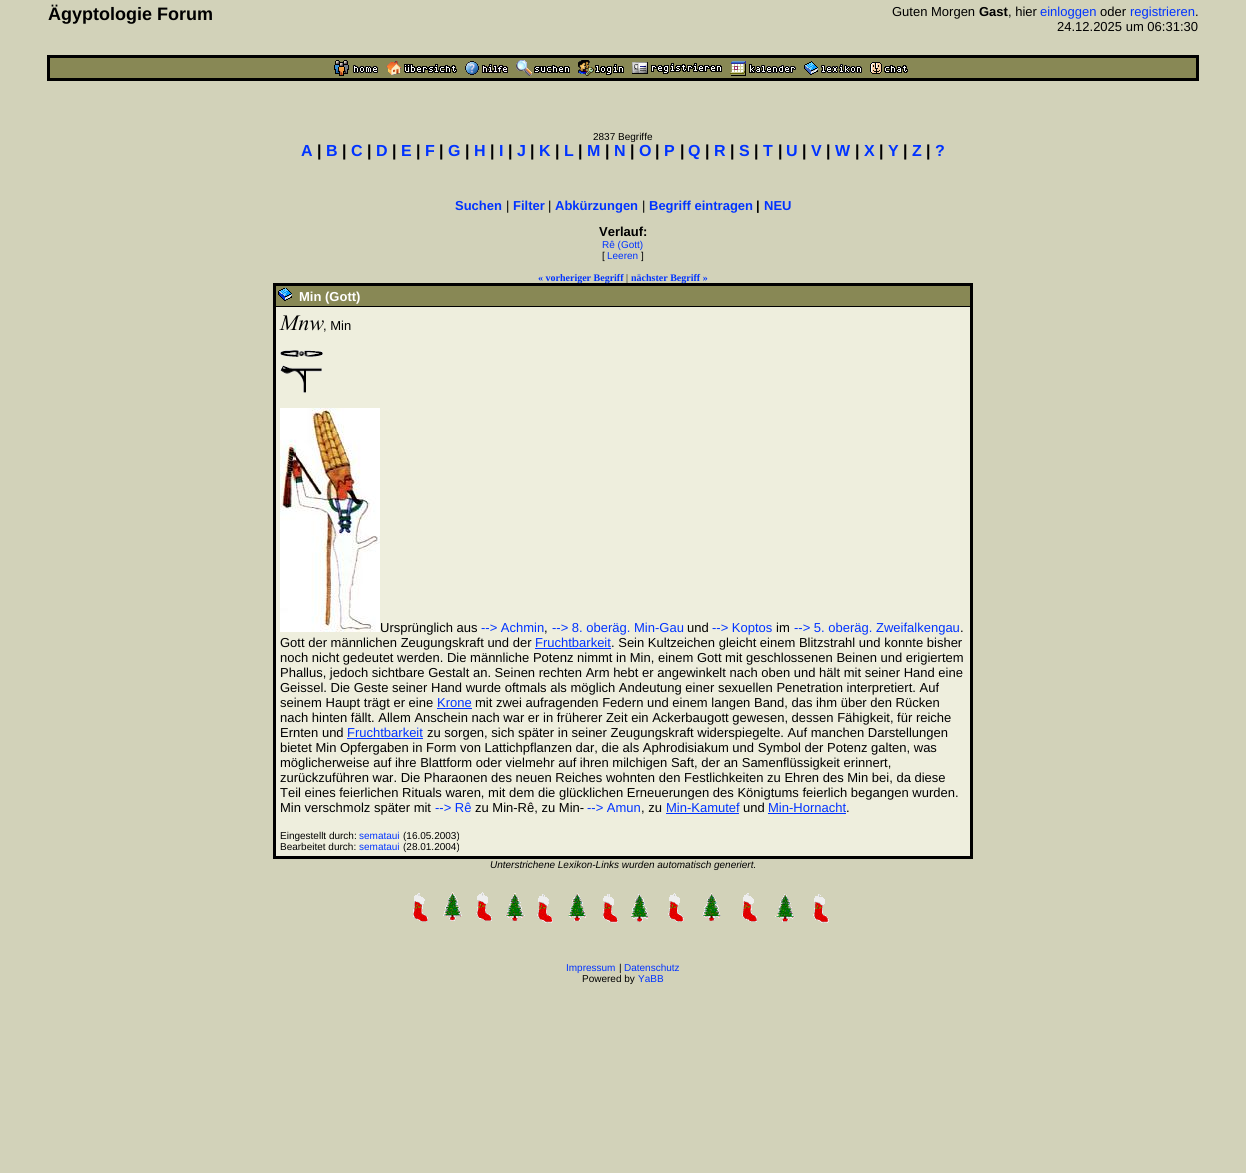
#include <cairo.h>
#include <math.h>
#include <stddef.h>


static void rgb(cairo_t *cr, int r, int g, int b)
{
	cairo_set_source_rgb(cr, r / 255.0, g / 255.0, b / 255.0);
}

static void face(cairo_t *cr, const char *family, double size, int italic, int bold)
{
	cairo_select_font_face(cr, family, italic ? CAIRO_FONT_SLANT_ITALIC : CAIRO_FONT_SLANT_NORMAL,
		bold ? CAIRO_FONT_WEIGHT_BOLD : CAIRO_FONT_WEIGHT_NORMAL);
	cairo_set_font_size(cr, size);
}

static void label(cairo_t *cr, double x, double y, const char *s)
{
	cairo_move_to(cr, x, y);
	cairo_show_text(cr, s);
}

static void rect(cairo_t *cr, double x, double y, double w, double h)
{
	cairo_rectangle(cr, x, y, w, h);
	cairo_fill(cr);
}

static void image(cairo_t *cr, const char *path, double x, double y, double w, double h)
{
	cairo_surface_t *image = cairo_image_surface_create_from_png(path);
	cairo_save(cr);
	cairo_set_source_surface(cr, image, x, y);
	cairo_rectangle(cr, x, y, w, h);
	cairo_fill(cr);
	cairo_restore(cr);
	cairo_surface_destroy(image);
}

static void draw(cairo_t *cr) {
	rgb(cr, 210, 210, 185);
	cairo_paint(cr);
	face(cr, "Liberation Sans", 18, 0, 1);
	rgb(cr, 0, 0, 0);
	label(cr, 48, 20, "Ägyptologie Forum");
	face(cr, "Liberation Sans", 13, 0, 0);
	label(cr, 892, 16, "Guten Morgen");
	face(cr, "Liberation Sans", 13, 0, 1);
	label(cr, 979, 16, "Gast");
	face(cr, "Liberation Sans", 13, 0, 0);
	label(cr, 1008, 16, ", hier");
	rgb(cr, 0, 51, 255);
	label(cr, 1040, 16, "einloggen");
	rgb(cr, 0, 0, 0);
	label(cr, 1100, 16, "oder");
	rgb(cr, 0, 51, 255);
	label(cr, 1130, 16, "registrieren");
	rgb(cr, 0, 0, 0);
	label(cr, 1195, 16, ".");
	label(cr, 1057, 31, "24.12.2025 um 06:31:30");
	rect(cr, 47, 55, 1152, 26);
	rgb(cr, 136, 136, 85);
	rect(cr, 50, 58, 1146, 20);
	image(cr, "image0.png", 334, 60, 44, 16);
	image(cr, "image1.png", 386, 61, 71, 14);
	image(cr, "image2.png", 465, 61, 43, 14);
	image(cr, "image3.png", 516, 60, 54, 16);
	image(cr, "image4.png", 578, 60, 46, 16);
	image(cr, "image5.png", 632, 62, 90, 12);
	image(cr, "image6.png", 730, 61, 66, 15);
	image(cr, "image7.png", 804, 61, 58, 14);
	image(cr, "image8.png", 870, 62, 38, 12);
	face(cr, "Liberation Sans", 10, 0, 0);
	rgb(cr, 0, 0, 0);
	label(cr, 593, 140, "2837 Begriffe");
	face(cr, "Liberation Sans", 16, 0, 1);
	rgb(cr, 0, 51, 255);
	label(cr, 301, 156, "A");
	rgb(cr, 0, 0, 0);
	label(cr, 317, 156, "|");
	rgb(cr, 0, 51, 255);
	label(cr, 326, 156, "B");
	rgb(cr, 0, 0, 0);
	label(cr, 342, 156, "|");
	rgb(cr, 0, 51, 255);
	label(cr, 351, 156, "C");
	rgb(cr, 0, 0, 0);
	label(cr, 367, 156, "|");
	rgb(cr, 0, 51, 255);
	label(cr, 376, 156, "D");
	rgb(cr, 0, 0, 0);
	label(cr, 392, 156, "|");
	rgb(cr, 0, 51, 255);
	label(cr, 401, 156, "E");
	rgb(cr, 0, 0, 0);
	label(cr, 416, 156, "|");
	rgb(cr, 0, 51, 255);
	label(cr, 425, 156, "F");
	rgb(cr, 0, 0, 0);
	label(cr, 439, 156, "|");
	rgb(cr, 0, 51, 255);
	label(cr, 448, 156, "G");
	rgb(cr, 0, 0, 0);
	label(cr, 465, 156, "|");
	rgb(cr, 0, 51, 255);
	label(cr, 474, 156, "H");
	rgb(cr, 0, 0, 0);
	label(cr, 490, 156, "|");
	rgb(cr, 0, 51, 255);
	label(cr, 499, 156, "I");
	rgb(cr, 0, 0, 0);
	label(cr, 508, 156, "|");
	rgb(cr, 0, 51, 255);
	label(cr, 517, 156, "J");
	rgb(cr, 0, 0, 0);
	label(cr, 530, 156, "|");
	rgb(cr, 0, 51, 255);
	label(cr, 539, 156, "K");
	rgb(cr, 0, 0, 0);
	label(cr, 555, 156, "|");
	rgb(cr, 0, 51, 255);
	label(cr, 564, 156, "L");
	rgb(cr, 0, 0, 0);
	label(cr, 578, 156, "|");
	rgb(cr, 0, 51, 255);
	label(cr, 587, 156, "M");
	rgb(cr, 0, 0, 0);
	label(cr, 605, 156, "|");
	rgb(cr, 0, 51, 255);
	label(cr, 614, 156, "N");
	rgb(cr, 0, 0, 0);
	label(cr, 630, 156, "|");
	rgb(cr, 0, 51, 255);
	label(cr, 639, 156, "O");
	rgb(cr, 0, 0, 0);
	label(cr, 655, 156, "|");
	rgb(cr, 0, 51, 255);
	label(cr, 664, 156, "P");
	rgb(cr, 0, 0, 0);
	label(cr, 680, 156, "|");
	rgb(cr, 0, 51, 255);
	label(cr, 688, 156, "Q");
	rgb(cr, 0, 0, 0);
	label(cr, 705, 156, "|");
	rgb(cr, 0, 51, 255);
	label(cr, 714, 156, "R");
	rgb(cr, 0, 0, 0);
	label(cr, 730, 156, "|");
	rgb(cr, 0, 51, 255);
	label(cr, 739, 156, "S");
	rgb(cr, 0, 0, 0);
	label(cr, 754, 156, "|");
	rgb(cr, 0, 51, 255);
	label(cr, 763, 156, "T");
	rgb(cr, 0, 0, 0);
	label(cr, 778, 156, "|");
	rgb(cr, 0, 51, 255);
	label(cr, 786, 156, "U");
	rgb(cr, 0, 0, 0);
	label(cr, 802, 156, "|");
	rgb(cr, 0, 51, 255);
	label(cr, 811, 156, "V");
	rgb(cr, 0, 0, 0);
	label(cr, 826, 156, "|");
	rgb(cr, 0, 51, 255);
	label(cr, 835, 156, "W");
	rgb(cr, 0, 0, 0);
	label(cr, 855, 156, "|");
	rgb(cr, 0, 51, 255);
	label(cr, 864, 156, "X");
	rgb(cr, 0, 0, 0);
	label(cr, 879, 156, "|");
	rgb(cr, 0, 51, 255);
	label(cr, 888, 156, "Y");
	rgb(cr, 0, 0, 0);
	label(cr, 903, 156, "|");
	rgb(cr, 0, 51, 255);
	label(cr, 912, 156, "Z");
	rgb(cr, 0, 0, 0);
	label(cr, 926, 156, "|");
	rgb(cr, 0, 51, 255);
	label(cr, 935, 156, "?");
	face(cr, "Liberation Sans", 13, 0, 1);
	label(cr, 455, 210, "Suchen");
	face(cr, "Liberation Sans", 13, 0, 0);
	rgb(cr, 0, 0, 0);
	label(cr, 506, 210, "|");
	face(cr, "Liberation Sans", 13, 0, 1);
	rgb(cr, 0, 51, 255);
	label(cr, 513, 210, "Filter");
	face(cr, "Liberation Sans", 13, 0, 0);
	rgb(cr, 0, 0, 0);
	label(cr, 548, 210, "|");
	face(cr, "Liberation Sans", 13, 0, 1);
	rgb(cr, 0, 51, 255);
	label(cr, 555, 210, "Abkürzungen");
	face(cr, "Liberation Sans", 13, 0, 0);
	rgb(cr, 0, 0, 0);
	label(cr, 642, 210, "|");
	face(cr, "Liberation Sans", 13, 0, 1);
	rgb(cr, 0, 51, 255);
	label(cr, 649, 210, "Begriff eintragen");
	rgb(cr, 0, 0, 0);
	label(cr, 756, 210, "|");
	rgb(cr, 0, 51, 255);
	label(cr, 764, 210, "NEU");
	rgb(cr, 0, 0, 0);
	label(cr, 599, 236, "Verlauf:");
	face(cr, "Liberation Sans", 10, 0, 0);
	rgb(cr, 0, 51, 255);
	label(cr, 602, 248, "Rê (Gott)");
	rgb(cr, 0, 0, 0);
	label(cr, 602, 259, "[");
	rgb(cr, 0, 51, 255);
	label(cr, 607, 259, "Leeren");
	rgb(cr, 0, 0, 0);
	label(cr, 641, 259, "]");
	rect(cr, 273, 283, 700, 576);
	face(cr, "Liberation Serif", 10, 0, 1);
	rgb(cr, 0, 51, 255);
	label(cr, 538, 281, "« vorheriger Begriff");
	face(cr, "Liberation Serif", 10, 0, 0);
	rgb(cr, 0, 0, 0);
	label(cr, 626, 281, "|");
	face(cr, "Liberation Serif", 10, 0, 1);
	rgb(cr, 0, 51, 255);
	label(cr, 631, 281, "nächster Begriff »");
	rgb(cr, 136, 136, 85);
	rect(cr, 276, 286, 694, 20);
	image(cr, "image9.png", 278, 288, 14, 13);
	face(cr, "Liberation Sans", 13, 0, 1);
	rgb(cr, 255, 255, 255);
	label(cr, 299, 301, "Min (Gott)");
	rgb(cr, 238, 238, 221);
	rect(cr, 276, 307, 694, 549);
	face(cr, "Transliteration", 22, 1, 0);
	rgb(cr, 0, 0, 0);
	label(cr, 280, 330, "Mnw");
	face(cr, "Liberation Sans", 13, 0, 0);
	label(cr, 323, 330, ", Min");
	image(cr, "image10.png", 280, 350, 43, 7);
	image(cr, "image11.png", 280, 365, 42, 28);
	image(cr, "image12.png", 280, 408, 100, 224);
	label(cr, 380, 632, "Ursprünglich aus");
	rgb(cr, 0, 51, 255);
	label(cr, 481, 632, "--> Achmin");
	rgb(cr, 0, 0, 0);
	label(cr, 544, 632, ",");
	rgb(cr, 0, 51, 255);
	label(cr, 552, 632, "--> 8. oberäg. Min-Gau");
	rgb(cr, 0, 0, 0);
	label(cr, 687, 632, "und");
	rgb(cr, 0, 51, 255);
	label(cr, 712, 632, "--> Koptos");
	rgb(cr, 0, 0, 0);
	label(cr, 776, 632, "im");
	rgb(cr, 0, 51, 255);
	label(cr, 794, 632, "--> 5. oberäg. Zweifalkengau");
	rgb(cr, 0, 0, 0);
	label(cr, 960, 632, ".");
	label(cr, 280, 647, "Gott der männlichen Zeugungskraft und der");
	rgb(cr, 0, 51, 255);
	label(cr, 535, 647, "Fruchtbarkeit");
	rect(cr, 535, 648, 76, 1);
	rgb(cr, 0, 0, 0);
	label(cr, 611, 647, ". Sein Kultzeichen gleicht einem Blitzstrahl und konnte bisher");
	label(cr, 280, 662, "noch nicht gedeutet werden. Die männliche Potenz nimmt in Min, einem Gott mit geschlossenen Beinen und erigiertem");
	label(cr, 280, 677, "Phallus, jedoch sichtbare Gestalt an. Seinen rechten Arm hebt er angewinkelt nach oben und hält mit seiner Hand eine");
	label(cr, 280, 692, "Geissel. Die Geste seiner Hand wurde oftmals als möglich Andeutung einer sexuellen Penetration interpretiert. Auf");
	label(cr, 280, 707, "seinem Haupt trägt er eine");
	rgb(cr, 0, 51, 255);
	label(cr, 437, 707, "Krone");
	rect(cr, 437, 708, 35, 1);
	rgb(cr, 0, 0, 0);
	label(cr, 475, 707, "mit zwei aufragenden Federn und einem langen Band, das ihm über den Rücken");
	label(cr, 280, 722, "nach hinten fällt. Allem Anschein nach war er in früherer Zeit ein Ackerbaugott gewesen, dessen Fähigkeit, für reiche");
	label(cr, 280, 737, "Ernten und");
	rgb(cr, 0, 51, 255);
	label(cr, 347, 737, "Fruchtbarkeit");
	rect(cr, 347, 738, 76, 1);
	rgb(cr, 0, 0, 0);
	label(cr, 427, 737, "zu sorgen, sich später in seiner Zeugungskraft widerspiegelte. Auf manchen Darstellungen");
	label(cr, 280, 752, "bietet Min Opfergaben in Form von Lattichpflanzen dar, die als Aphrodisiakum und Symbol der Potenz galten, was");
	label(cr, 280, 767, "möglicherweise auf ihre Blattform oder vielmehr auf ihren milchigen Saft, der an Samenflüssigkeit erinnert,");
	label(cr, 280, 782, "zurückzuführen war. Die Pharaonen des neuen Reiches wohnten den Festlichkeiten zu Ehren des Min bei, da diese");
	label(cr, 280, 797, "Teil eines feierlichen Rituals waren, mit dem die glücklichen Erneuerungen des Königtums feierlich begangen wurden.");
	label(cr, 280, 812, "Min verschmolz später mit");
	rgb(cr, 0, 51, 255);
	label(cr, 435, 812, "--> Rê");
	rgb(cr, 0, 0, 0);
	label(cr, 475, 812, "zu Min-Rê, zu Min-");
	rgb(cr, 0, 51, 255);
	label(cr, 587, 812, "--> Amun");
	rgb(cr, 0, 0, 0);
	label(cr, 641, 812, ", zu");
	rgb(cr, 0, 51, 255);
	label(cr, 666, 812, "Min-Kamutef");
	rect(cr, 666, 813, 73, 1);
	rgb(cr, 0, 0, 0);
	label(cr, 743, 812, "und");
	rgb(cr, 0, 51, 255);
	label(cr, 768, 812, "Min-Hornacht");
	rect(cr, 768, 813, 78, 1);
	rgb(cr, 0, 0, 0);
	label(cr, 846, 812, ".");
	face(cr, "Liberation Sans", 10, 0, 0);
	label(cr, 280, 839, "Eingestellt durch:");
	rgb(cr, 0, 51, 255);
	label(cr, 359, 839, "semataui");
	rgb(cr, 0, 0, 0);
	label(cr, 403, 839, "(16.05.2003)");
	label(cr, 280, 850, "Bearbeitet durch:");
	rgb(cr, 0, 51, 255);
	label(cr, 359, 850, "semataui");
	rgb(cr, 0, 0, 0);
	label(cr, 403, 850, "(28.01.2004)");
	face(cr, "Liberation Sans", 10, 1, 0);
	label(cr, 490, 868, "Unterstrichene Lexikon-Links wurden automatisch generiert.");
	image(cr, "image13.png", 413, 892, 416, 31);
	face(cr, "Liberation Sans", 10, 0, 0);
	rgb(cr, 0, 51, 255);
	label(cr, 566, 971, "Impressum");
	rgb(cr, 0, 0, 0);
	label(cr, 619, 971, "|");
	rgb(cr, 0, 51, 255);
	label(cr, 624, 971, "Datenschutz");
	rgb(cr, 0, 0, 0);
	label(cr, 582, 982, "Powered by");
	rgb(cr, 0, 51, 255);
	label(cr, 638, 982, "YaBB");
}

int main(void) {
	cairo_surface_t *surface = cairo_image_surface_create(CAIRO_FORMAT_RGB24, 1246, 1173);
	cairo_t *cr = cairo_create(surface);
	cairo_font_options_t *options = cairo_font_options_create();
	cairo_font_options_set_hint_metrics(options, CAIRO_HINT_METRICS_OFF);
	cairo_font_options_set_hint_style(options, CAIRO_HINT_STYLE_NONE);
	cairo_set_font_options(cr, options);
	cairo_set_miter_limit(cr, 4);
	draw(cr);
	cairo_surface_write_to_png(surface, "render.png");
	cairo_font_options_destroy(options);
	cairo_destroy(cr);
	cairo_surface_destroy(surface);
	return 0;
}
